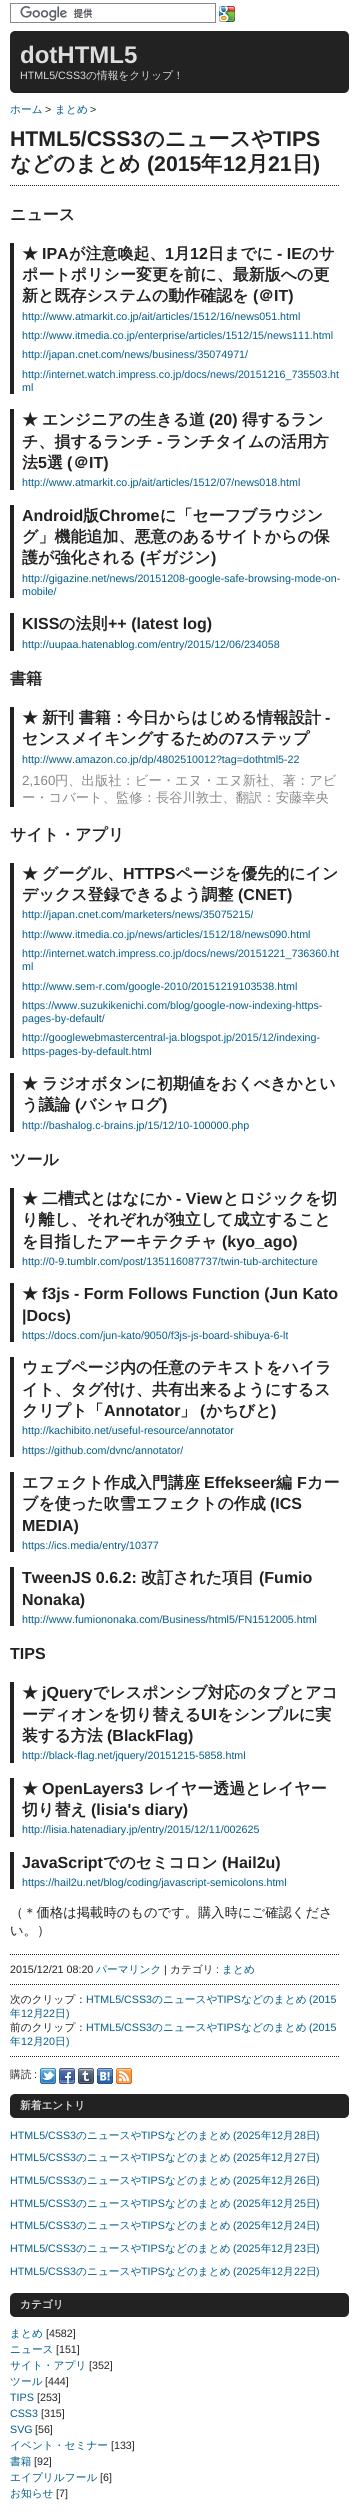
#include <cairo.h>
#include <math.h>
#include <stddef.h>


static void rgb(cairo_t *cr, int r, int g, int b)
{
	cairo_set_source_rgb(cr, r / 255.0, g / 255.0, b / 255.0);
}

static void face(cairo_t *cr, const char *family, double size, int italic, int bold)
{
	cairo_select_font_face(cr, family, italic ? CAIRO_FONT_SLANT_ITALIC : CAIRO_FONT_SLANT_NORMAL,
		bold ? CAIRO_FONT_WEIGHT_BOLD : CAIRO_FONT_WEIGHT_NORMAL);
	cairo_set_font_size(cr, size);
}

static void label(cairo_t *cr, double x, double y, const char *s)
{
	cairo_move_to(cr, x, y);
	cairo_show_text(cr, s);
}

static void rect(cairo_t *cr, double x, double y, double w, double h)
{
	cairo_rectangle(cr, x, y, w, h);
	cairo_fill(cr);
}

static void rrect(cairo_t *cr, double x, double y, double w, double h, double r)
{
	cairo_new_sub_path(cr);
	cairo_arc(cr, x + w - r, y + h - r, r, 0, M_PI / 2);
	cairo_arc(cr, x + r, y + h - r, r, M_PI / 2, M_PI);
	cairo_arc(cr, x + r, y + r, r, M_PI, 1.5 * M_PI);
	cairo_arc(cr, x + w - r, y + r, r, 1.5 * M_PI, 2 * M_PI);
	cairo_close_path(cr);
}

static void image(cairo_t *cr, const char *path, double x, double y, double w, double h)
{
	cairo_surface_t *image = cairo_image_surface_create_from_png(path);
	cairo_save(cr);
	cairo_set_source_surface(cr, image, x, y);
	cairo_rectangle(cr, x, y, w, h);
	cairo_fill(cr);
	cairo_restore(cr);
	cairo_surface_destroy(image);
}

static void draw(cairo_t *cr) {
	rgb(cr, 255, 255, 255);
	cairo_paint(cr);
	image(cr, "image0.png", 20, 6, 73, 15);
	cairo_rectangle(cr, 10.5, 3.5, 205, 19);
	rgb(cr, 136, 136, 136);
	cairo_set_line_width(cr, 1);
	cairo_stroke(cr);
	image(cr, "image1.png", 219, 6, 16, 16);
	rgb(cr, 34, 34, 34);
	rrect(cr, 10, 31, 339, 62, 5);
	cairo_fill(cr);
	face(cr, "Liberation Sans", 24, 0, 1);
	rgb(cr, 221, 221, 221);
	label(cr, 20, 63, "dotHTML5");
	face(cr, "Liberation Sans", 10.7, 0, 0);
	label(cr, 20, 79, "HTML5/CSS3");
	face(cr, "WenQuanYi Zen Hei Medium", 10.7, 0, 0);
	label(cr, 86, 79, "の情報をクリップ！");
	rgb(cr, 2, 93, 140);
	label(cr, 10, 113, "ホーム");
	face(cr, "Liberation Sans", 10.7, 0, 0);
	rgb(cr, 34, 34, 34);
	label(cr, 45, 113, ">");
	face(cr, "WenQuanYi Zen Hei Medium", 10.7, 0, 0);
	rgb(cr, 2, 93, 140);
	label(cr, 55, 113, "まとめ");
	face(cr, "Liberation Sans", 10.7, 0, 0);
	rgb(cr, 34, 34, 34);
	label(cr, 90, 113, ">");
	face(cr, "Liberation Sans", 21.25, 0, 1);
	label(cr, 10, 146, "HTML5/CSS3");
	face(cr, "WenQuanYi Zen Hei", 21.25, 0, 1);
	label(cr, 143, 146, "のニュースや");
	face(cr, "Liberation Sans", 21.25, 0, 1);
	label(cr, 273, 146, "TIPS");
	face(cr, "WenQuanYi Zen Hei", 21.25, 0, 1);
	label(cr, 10, 171, "などのまとめ");
	face(cr, "Liberation Sans", 21.25, 0, 1);
	label(cr, 147, 171, "(2015");
	face(cr, "WenQuanYi Zen Hei", 21.25, 0, 1);
	label(cr, 201, 171, "年");
	face(cr, "Liberation Sans", 21.25, 0, 1);
	label(cr, 223, 171, "12");
	face(cr, "WenQuanYi Zen Hei", 21.25, 0, 1);
	label(cr, 247, 171, "月");
	face(cr, "Liberation Sans", 21.25, 0, 1);
	label(cr, 268, 171, "21");
	face(cr, "WenQuanYi Zen Hei", 21.25, 0, 1);
	label(cr, 292, 171, "日");
	face(cr, "Liberation Sans", 21.25, 0, 1);
	label(cr, 313, 171, ")");
	cairo_new_path(cr);
	cairo_move_to(cr, 10, 185.5);
	cairo_line_to(cr, 339, 185.5);
	cairo_set_dash(cr, (double[]){1, 1}, 2, 0);
	cairo_stroke(cr);
	face(cr, "WenQuanYi Zen Hei", 16, 0, 1);
	label(cr, 10, 220, "ニュース");
	rect(cr, 10, 243, 4, 151);
	label(cr, 22, 259, "★");
	face(cr, "Liberation Sans", 16, 0, 1);
	label(cr, 42, 259, "IPA");
	face(cr, "WenQuanYi Zen Hei", 16, 0, 1);
	label(cr, 69, 259, "が注意喚起、");
	face(cr, "Liberation Sans", 16, 0, 1);
	label(cr, 165, 259, "1");
	face(cr, "WenQuanYi Zen Hei", 16, 0, 1);
	label(cr, 174, 259, "月");
	face(cr, "Liberation Sans", 16, 0, 1);
	label(cr, 190, 259, "12");
	face(cr, "WenQuanYi Zen Hei", 16, 0, 1);
	label(cr, 208, 259, "日までに");
	face(cr, "Liberation Sans", 16, 0, 1);
	label(cr, 277, 259, "- IE");
	face(cr, "WenQuanYi Zen Hei", 16, 0, 1);
	label(cr, 302, 259, "のサ");
	label(cr, 22, 280, "ポートポリシー変更を前に、最新版への更");
	label(cr, 22, 301, "新と既存システムの動作確認を");
	face(cr, "Liberation Sans", 16, 0, 1);
	label(cr, 253, 301, "(");
	face(cr, "WenQuanYi Zen Hei", 16, 0, 1);
	label(cr, 258, 301, "＠");
	face(cr, "Liberation Sans", 16, 0, 1);
	label(cr, 274, 301, "IT)");
	face(cr, "Liberation Sans", 10.7, 0, 0);
	rgb(cr, 2, 93, 140);
	label(cr, 22, 320, "http://www.atmarkit.co.jp/ait/articles/1512/16/news051.html");
	label(cr, 22, 339, "http://www.itmedia.co.jp/enterprise/articles/1512/15/news111.html");
	label(cr, 22, 358, "http://japan.cnet.com/news/business/35074971/");
	label(cr, 22, 378, "http://internet.watch.impress.co.jp/docs/news/20151216_735503.ht");
	label(cr, 22, 391, "ml");
	rgb(cr, 34, 34, 34);
	rect(cr, 10, 409, 4, 81);
	face(cr, "WenQuanYi Zen Hei", 16, 0, 1);
	label(cr, 22, 425, "★");
	label(cr, 42, 425, "エンジニアの生きる道");
	face(cr, "Liberation Sans", 16, 0, 1);
	label(cr, 209, 425, "(20)");
	face(cr, "WenQuanYi Zen Hei", 16, 0, 1);
	label(cr, 242, 425, "得するラン");
	label(cr, 22, 447, "チ、損するランチ");
	face(cr, "Liberation Sans", 16, 0, 1);
	label(cr, 157, 447, "-");
	face(cr, "WenQuanYi Zen Hei", 16, 0, 1);
	label(cr, 166, 447, "ランチタイムの活用方");
	label(cr, 22, 468, "法");
	face(cr, "Liberation Sans", 16, 0, 1);
	label(cr, 38, 468, "5");
	face(cr, "WenQuanYi Zen Hei", 16, 0, 1);
	label(cr, 47, 468, "選");
	face(cr, "Liberation Sans", 16, 0, 1);
	label(cr, 67, 468, "(");
	face(cr, "WenQuanYi Zen Hei", 16, 0, 1);
	label(cr, 73, 468, "＠");
	face(cr, "Liberation Sans", 16, 0, 1);
	label(cr, 89, 468, "IT)");
	face(cr, "Liberation Sans", 10.7, 0, 0);
	rgb(cr, 2, 93, 140);
	label(cr, 22, 486, "http://www.atmarkit.co.jp/ait/articles/1512/07/news018.html");
	rgb(cr, 34, 34, 34);
	rect(cr, 10, 505, 4, 93);
	face(cr, "Liberation Sans", 16, 0, 1);
	label(cr, 22, 521, "Android");
	face(cr, "WenQuanYi Zen Hei", 16, 0, 1);
	label(cr, 83, 521, "版");
	face(cr, "Liberation Sans", 16, 0, 1);
	label(cr, 99, 521, "Chrome");
	face(cr, "WenQuanYi Zen Hei", 16, 0, 1);
	label(cr, 160, 521, "に「セーフブラウジン");
	label(cr, 22, 542, "グ」機能追加、悪意のあるサイトからの保");
	label(cr, 22, 563, "護が強化される");
	face(cr, "Liberation Sans", 16, 0, 1);
	label(cr, 140, 563, "(");
	face(cr, "WenQuanYi Zen Hei", 16, 0, 1);
	label(cr, 145, 563, "ギガジン");
	face(cr, "Liberation Sans", 16, 0, 1);
	label(cr, 211, 563, ")");
	face(cr, "Liberation Sans", 10.7, 0, 0);
	rgb(cr, 2, 93, 140);
	label(cr, 22, 582, "http://gigazine.net/news/20151208-google-safe-browsing-mode-on-");
	label(cr, 22, 595, "mobile/");
	rgb(cr, 34, 34, 34);
	rect(cr, 10, 613, 4, 38);
	face(cr, "Liberation Sans", 16, 0, 1);
	label(cr, 22, 629, "KISS");
	face(cr, "WenQuanYi Zen Hei", 16, 0, 1);
	label(cr, 59, 629, "の法則");
	face(cr, "Liberation Sans", 16, 0, 1);
	label(cr, 108, 629, "++ (latest log)");
	face(cr, "Liberation Sans", 10.7, 0, 0);
	rgb(cr, 2, 93, 140);
	label(cr, 22, 648, "http://uupaa.hatenablog.com/entry/2015/12/06/234058");
	face(cr, "WenQuanYi Zen Hei", 16, 0, 1);
	rgb(cr, 34, 34, 34);
	label(cr, 10, 684, "書籍");
	rect(cr, 10, 707, 4, 100);
	label(cr, 22, 723, "★");
	label(cr, 42, 723, "新刊 書籍：今日からはじめる情報設計");
	face(cr, "Liberation Sans", 16, 0, 1);
	label(cr, 325, 723, "-");
	face(cr, "WenQuanYi Zen Hei", 16, 0, 1);
	label(cr, 22, 744, "センスメイキングするための");
	face(cr, "Liberation Sans", 16, 0, 1);
	label(cr, 235, 744, "7");
	face(cr, "WenQuanYi Zen Hei", 16, 0, 1);
	label(cr, 244, 744, "ステップ");
	face(cr, "Liberation Sans", 10.7, 0, 0);
	rgb(cr, 2, 93, 140);
	label(cr, 22, 763, "http://www.amazon.co.jp/dp/4802510012?tag=dothtml5-22");
	face(cr, "Liberation Sans", 13.3, 0, 0);
	rgb(cr, 136, 136, 136);
	label(cr, 22, 785, "2,160");
	face(cr, "WenQuanYi Zen Hei Medium", 13.3, 0, 0);
	label(cr, 55, 785, "円、出版社：ビー・エヌ・エヌ新社、著：アビ");
	label(cr, 22, 802, "ー・コバート、監修：長谷川敦士、翻訳：安藤幸央");
	face(cr, "WenQuanYi Zen Hei", 16, 0, 1);
	rgb(cr, 34, 34, 34);
	label(cr, 10, 840, "サイト・アプリ");
	rect(cr, 10, 863, 4, 195);
	label(cr, 22, 879, "★");
	label(cr, 42, 879, "グーグル、");
	face(cr, "Liberation Sans", 16, 0, 1);
	label(cr, 123, 879, "HTTPS");
	face(cr, "WenQuanYi Zen Hei", 16, 0, 1);
	label(cr, 176, 879, "ページを優先的にイン");
	label(cr, 22, 900, "デックス登録できるよう調整");
	face(cr, "Liberation Sans", 16, 0, 1);
	label(cr, 238, 900, "(CNET)");
	face(cr, "Liberation Sans", 10.7, 0, 0);
	rgb(cr, 2, 93, 140);
	label(cr, 22, 918, "http://japan.cnet.com/marketers/news/35075215/");
	label(cr, 22, 938, "http://www.itmedia.co.jp/news/articles/1512/18/news090.html");
	label(cr, 22, 957, "http://internet.watch.impress.co.jp/docs/news/20151221_736360.ht");
	label(cr, 22, 970, "ml");
	label(cr, 22, 990, "http://www.sem-r.com/google-2010/20151219103538.html");
	label(cr, 22, 1009, "https://www.suzukikenichi.com/blog/google-now-indexing-https-");
	label(cr, 22, 1022, "pages-by-default/");
	label(cr, 22, 1041, "http://googlewebmastercentral-ja.blogspot.jp/2015/12/indexing-");
	label(cr, 22, 1055, "https-pages-by-default.html");
	rgb(cr, 34, 34, 34);
	rect(cr, 10, 1073, 4, 59);
	face(cr, "WenQuanYi Zen Hei", 16, 0, 1);
	label(cr, 22, 1089, "★");
	label(cr, 42, 1089, "ラジオボタンに初期値をおくべきかとい");
	label(cr, 22, 1110, "う議論");
	face(cr, "Liberation Sans", 16, 0, 1);
	label(cr, 75, 1110, "(");
	face(cr, "WenQuanYi Zen Hei", 16, 0, 1);
	label(cr, 80, 1110, "バシャログ");
	face(cr, "Liberation Sans", 16, 0, 1);
	label(cr, 162, 1110, ")");
	face(cr, "Liberation Sans", 10.7, 0, 0);
	rgb(cr, 2, 93, 140);
	label(cr, 22, 1129, "http://bashalog.c-brains.jp/15/12/10-100000.php");
	face(cr, "WenQuanYi Zen Hei", 16, 0, 1);
	rgb(cr, 34, 34, 34);
	label(cr, 10, 1165, "ツール");
	rect(cr, 10, 1188, 4, 80);
	label(cr, 22, 1204, "★");
	label(cr, 42, 1204, "二槽式とはなにか");
	face(cr, "Liberation Sans", 16, 0, 1);
	label(cr, 176, 1204, "- View");
	face(cr, "WenQuanYi Zen Hei", 16, 0, 1);
	label(cr, 223, 1204, "とロジックを切");
	label(cr, 22, 1225, "り離し、それぞれが独立して成立すること");
	label(cr, 22, 1247, "を目指したアーキテクチャ");
	face(cr, "Liberation Sans", 16, 0, 1);
	label(cr, 222, 1247, "(kyo_ago)");
	face(cr, "Liberation Sans", 10.7, 0, 0);
	rgb(cr, 2, 93, 140);
	label(cr, 22, 1265, "http://0-9.tumblr.com/post/135116087737/twin-tub-architecture");
	rgb(cr, 34, 34, 34);
	rect(cr, 10, 1283, 4, 59);
	face(cr, "WenQuanYi Zen Hei", 16, 0, 1);
	label(cr, 22, 1299, "★");
	face(cr, "Liberation Sans", 16, 0, 1);
	label(cr, 42, 1299, "f3js - Form Follows Function (Jun Kato");
	label(cr, 22, 1321, "|Docs)");
	face(cr, "Liberation Sans", 10.7, 0, 0);
	rgb(cr, 2, 93, 140);
	label(cr, 22, 1339, "https://docs.com/jun-kato/9050/f3js-js-board-shibuya-6-lt");
	rgb(cr, 34, 34, 34);
	rect(cr, 10, 1357, 4, 100);
	face(cr, "WenQuanYi Zen Hei", 16, 0, 1);
	label(cr, 22, 1373, "ウェブページ内の任意のテキストをハイラ");
	label(cr, 22, 1395, "イト、タグ付け、共有出来るようにするス");
	label(cr, 22, 1416, "クリプト「");
	face(cr, "Liberation Sans", 16, 0, 1);
	label(cr, 104, 1416, "Annotator");
	face(cr, "WenQuanYi Zen Hei", 16, 0, 1);
	label(cr, 180, 1416, "」");
	face(cr, "Liberation Sans", 16, 0, 1);
	label(cr, 200, 1416, "(");
	face(cr, "WenQuanYi Zen Hei", 16, 0, 1);
	label(cr, 206, 1416, "かちびと");
	face(cr, "Liberation Sans", 16, 0, 1);
	label(cr, 271, 1416, ")");
	face(cr, "Liberation Sans", 10.7, 0, 0);
	rgb(cr, 2, 93, 140);
	label(cr, 22, 1434, "http://kachibito.net/useful-resource/annotator");
	label(cr, 22, 1454, "https://github.com/dvnc/annotator/");
	rgb(cr, 34, 34, 34);
	rect(cr, 10, 1472, 4, 80);
	face(cr, "WenQuanYi Zen Hei", 16, 0, 1);
	label(cr, 22, 1488, "エフェクト作成入門講座");
	face(cr, "Liberation Sans", 16, 0, 1);
	label(cr, 204, 1488, "Effekseer");
	face(cr, "WenQuanYi Zen Hei", 16, 0, 1);
	label(cr, 276, 1488, "編");
	face(cr, "Liberation Sans", 16, 0, 1);
	label(cr, 297, 1488, "F");
	face(cr, "WenQuanYi Zen Hei", 16, 0, 1);
	label(cr, 307, 1488, "カー");
	label(cr, 22, 1509, "ブを使った吹雪エフェクトの作成");
	face(cr, "Liberation Sans", 16, 0, 1);
	label(cr, 270, 1509, "(ICS");
	label(cr, 22, 1531, "MEDIA)");
	face(cr, "Liberation Sans", 10.7, 0, 0);
	rgb(cr, 2, 93, 140);
	label(cr, 22, 1549, "https://ics.media/entry/10377");
	rgb(cr, 34, 34, 34);
	rect(cr, 10, 1567, 4, 59);
	face(cr, "Liberation Sans", 16, 0, 1);
	label(cr, 22, 1583, "TweenJS 0.6.2:");
	face(cr, "WenQuanYi Zen Hei", 16, 0, 1);
	label(cr, 141, 1583, "改訂された項目");
	face(cr, "Liberation Sans", 16, 0, 1);
	label(cr, 259, 1583, "(Fumio");
	label(cr, 22, 1605, "Nonaka)");
	face(cr, "Liberation Sans", 10.7, 0, 0);
	rgb(cr, 2, 93, 140);
	label(cr, 22, 1623, "http://www.fumiononaka.com/Business/html5/FN1512005.html");
	face(cr, "Liberation Sans", 16, 0, 1);
	rgb(cr, 34, 34, 34);
	label(cr, 10, 1659, "TIPS");
	rect(cr, 10, 1682, 4, 81);
	face(cr, "WenQuanYi Zen Hei", 16, 0, 1);
	label(cr, 22, 1698, "★");
	face(cr, "Liberation Sans", 16, 0, 1);
	label(cr, 42, 1698, "jQuery");
	face(cr, "WenQuanYi Zen Hei", 16, 0, 1);
	label(cr, 93, 1698, "でレスポンシブ対応のタブとアコ");
	label(cr, 22, 1720, "ーディオンを切り替える");
	face(cr, "Liberation Sans", 16, 0, 1);
	label(cr, 201, 1720, "UI");
	face(cr, "WenQuanYi Zen Hei", 16, 0, 1);
	label(cr, 217, 1720, "をシンプルに実");
	label(cr, 22, 1741, "装する方法");
	face(cr, "Liberation Sans", 16, 0, 1);
	label(cr, 107, 1741, "(BlackFlag)");
	face(cr, "Liberation Sans", 10.7, 0, 0);
	rgb(cr, 2, 93, 140);
	label(cr, 22, 1759, "http://black-flag.net/jquery/20151215-5858.html");
	rgb(cr, 34, 34, 34);
	rect(cr, 10, 1778, 4, 59);
	face(cr, "WenQuanYi Zen Hei", 16, 0, 1);
	label(cr, 22, 1794, "★");
	face(cr, "Liberation Sans", 16, 0, 1);
	label(cr, 42, 1794, "OpenLayers3");
	face(cr, "WenQuanYi Zen Hei", 16, 0, 1);
	label(cr, 148, 1794, "レイヤー透過とレイヤー");
	label(cr, 22, 1815, "切り替え");
	face(cr, "Liberation Sans", 16, 0, 1);
	label(cr, 91, 1815, "(lisia's diary)");
	face(cr, "Liberation Sans", 10.7, 0, 0);
	rgb(cr, 2, 93, 140);
	label(cr, 22, 1833, "http://lisia.hatenadiary.jp/entry/2015/12/11/002625");
	rgb(cr, 34, 34, 34);
	rect(cr, 10, 1852, 4, 37);
	face(cr, "Liberation Sans", 16, 0, 1);
	label(cr, 22, 1868, "JavaScript");
	face(cr, "WenQuanYi Zen Hei", 16, 0, 1);
	label(cr, 103, 1868, "でのセミコロン");
	face(cr, "Liberation Sans", 16, 0, 1);
	label(cr, 222, 1868, "(Hail2u)");
	face(cr, "Liberation Sans", 10.7, 0, 0);
	rgb(cr, 2, 93, 140);
	label(cr, 22, 1886, "https://hail2u.net/blog/coding/javascript-semicolons.html");
	face(cr, "WenQuanYi Zen Hei Medium", 13.3, 0, 0);
	rgb(cr, 34, 34, 34);
	label(cr, 10, 1917, "（＊価格は掲載時のものです。購入時にご確認くださ");
	label(cr, 10, 1935, "い。）");
	cairo_new_path(cr);
	cairo_move_to(cr, 10, 1954.5);
	cairo_line_to(cr, 339, 1954.5);
	cairo_stroke(cr);
	face(cr, "Liberation Sans", 10.7, 0, 0);
	label(cr, 10, 1973, "2015/12/21 08:20");
	face(cr, "WenQuanYi Zen Hei Medium", 10.7, 0, 0);
	rgb(cr, 2, 93, 140);
	label(cr, 96, 1973, "パーマリンク");
	face(cr, "Liberation Sans", 10.7, 0, 0);
	rgb(cr, 34, 34, 34);
	label(cr, 164, 1973, "|");
	face(cr, "WenQuanYi Zen Hei Medium", 10.7, 0, 0);
	label(cr, 170, 1973, "カテゴリ");
	face(cr, "Liberation Sans", 10.7, 0, 0);
	label(cr, 216, 1973, ":");
	face(cr, "WenQuanYi Zen Hei Medium", 10.7, 0, 0);
	rgb(cr, 2, 93, 140);
	label(cr, 222, 1973, "まとめ");
	cairo_new_path(cr);
	cairo_move_to(cr, 10, 1984.5);
	cairo_line_to(cr, 339, 1984.5);
	rgb(cr, 34, 34, 34);
	cairo_stroke(cr);
	label(cr, 10, 2003, "次のクリップ：");
	face(cr, "Liberation Sans", 10.7, 0, 0);
	rgb(cr, 2, 93, 140);
	label(cr, 86, 2003, "HTML5/CSS3");
	face(cr, "WenQuanYi Zen Hei Medium", 10.7, 0, 0);
	label(cr, 152, 2003, "のニュースや");
	face(cr, "Liberation Sans", 10.7, 0, 0);
	label(cr, 217, 2003, "TIPS");
	face(cr, "WenQuanYi Zen Hei Medium", 10.7, 0, 0);
	label(cr, 241, 2003, "などのまとめ");
	face(cr, "Liberation Sans", 10.7, 0, 0);
	label(cr, 309, 2003, "(2015");
	face(cr, "WenQuanYi Zen Hei Medium", 10.7, 0, 0);
	label(cr, 10, 2017, "年");
	face(cr, "Liberation Sans", 10.7, 0, 0);
	label(cr, 21, 2017, "12");
	face(cr, "WenQuanYi Zen Hei Medium", 10.7, 0, 0);
	label(cr, 33, 2017, "月");
	face(cr, "Liberation Sans", 10.7, 0, 0);
	label(cr, 43, 2017, "22");
	face(cr, "WenQuanYi Zen Hei Medium", 10.7, 0, 0);
	label(cr, 55, 2017, "日");
	face(cr, "Liberation Sans", 10.7, 0, 0);
	label(cr, 66, 2017, ")");
	face(cr, "WenQuanYi Zen Hei Medium", 10.7, 0, 0);
	rgb(cr, 34, 34, 34);
	label(cr, 10, 2031, "前のクリップ：");
	face(cr, "Liberation Sans", 10.7, 0, 0);
	rgb(cr, 2, 93, 140);
	label(cr, 86, 2031, "HTML5/CSS3");
	face(cr, "WenQuanYi Zen Hei Medium", 10.7, 0, 0);
	label(cr, 152, 2031, "のニュースや");
	face(cr, "Liberation Sans", 10.7, 0, 0);
	label(cr, 217, 2031, "TIPS");
	face(cr, "WenQuanYi Zen Hei Medium", 10.7, 0, 0);
	label(cr, 241, 2031, "などのまとめ");
	face(cr, "Liberation Sans", 10.7, 0, 0);
	label(cr, 309, 2031, "(2015");
	face(cr, "WenQuanYi Zen Hei Medium", 10.7, 0, 0);
	label(cr, 10, 2045, "年");
	face(cr, "Liberation Sans", 10.7, 0, 0);
	label(cr, 21, 2045, "12");
	face(cr, "WenQuanYi Zen Hei Medium", 10.7, 0, 0);
	label(cr, 33, 2045, "月");
	face(cr, "Liberation Sans", 10.7, 0, 0);
	label(cr, 43, 2045, "20");
	face(cr, "WenQuanYi Zen Hei Medium", 10.7, 0, 0);
	label(cr, 55, 2045, "日");
	face(cr, "Liberation Sans", 10.7, 0, 0);
	label(cr, 66, 2045, ")");
	cairo_new_path(cr);
	cairo_move_to(cr, 10, 2056.5);
	cairo_line_to(cr, 339, 2056.5);
	rgb(cr, 34, 34, 34);
	cairo_stroke(cr);
	face(cr, "WenQuanYi Zen Hei Medium", 10.7, 0, 0);
	label(cr, 10, 2078, "購読");
	face(cr, "Liberation Sans", 10.7, 0, 0);
	label(cr, 34, 2078, ":");
	image(cr, "image2.png", 40, 2068, 16, 16);
	image(cr, "image3.png", 59, 2068, 16, 16);
	image(cr, "image4.png", 78, 2068, 16, 16);
	image(cr, "image5.png", 97, 2068, 16, 16);
	image(cr, "image6.png", 116, 2068, 16, 16);
	rrect(cr, 10, 2094, 339, 24, 5);
	cairo_fill(cr);
	face(cr, "WenQuanYi Zen Hei", 10.7, 0, 1);
	rgb(cr, 221, 221, 221);
	label(cr, 20, 2109, "新着エントリ");
	face(cr, "Liberation Sans", 10.7, 0, 0);
	rgb(cr, 2, 93, 140);
	label(cr, 10, 2139, "HTML5/CSS3");
	face(cr, "WenQuanYi Zen Hei Medium", 10.7, 0, 0);
	label(cr, 76, 2139, "のニュースや");
	face(cr, "Liberation Sans", 10.7, 0, 0);
	label(cr, 141, 2139, "TIPS");
	face(cr, "WenQuanYi Zen Hei Medium", 10.7, 0, 0);
	label(cr, 165, 2139, "などのまとめ");
	face(cr, "Liberation Sans", 10.7, 0, 0);
	label(cr, 233, 2139, "(2025");
	face(cr, "WenQuanYi Zen Hei Medium", 10.7, 0, 0);
	label(cr, 261, 2139, "年");
	face(cr, "Liberation Sans", 10.7, 0, 0);
	label(cr, 271, 2139, "12");
	face(cr, "WenQuanYi Zen Hei Medium", 10.7, 0, 0);
	label(cr, 283, 2139, "月");
	face(cr, "Liberation Sans", 10.7, 0, 0);
	label(cr, 294, 2139, "28");
	face(cr, "WenQuanYi Zen Hei Medium", 10.7, 0, 0);
	label(cr, 306, 2139, "日");
	face(cr, "Liberation Sans", 10.7, 0, 0);
	label(cr, 316, 2139, ")");
	label(cr, 10, 2161, "HTML5/CSS3");
	face(cr, "WenQuanYi Zen Hei Medium", 10.7, 0, 0);
	label(cr, 76, 2161, "のニュースや");
	face(cr, "Liberation Sans", 10.7, 0, 0);
	label(cr, 141, 2161, "TIPS");
	face(cr, "WenQuanYi Zen Hei Medium", 10.7, 0, 0);
	label(cr, 165, 2161, "などのまとめ");
	face(cr, "Liberation Sans", 10.7, 0, 0);
	label(cr, 233, 2161, "(2025");
	face(cr, "WenQuanYi Zen Hei Medium", 10.7, 0, 0);
	label(cr, 261, 2161, "年");
	face(cr, "Liberation Sans", 10.7, 0, 0);
	label(cr, 271, 2161, "12");
	face(cr, "WenQuanYi Zen Hei Medium", 10.7, 0, 0);
	label(cr, 283, 2161, "月");
	face(cr, "Liberation Sans", 10.7, 0, 0);
	label(cr, 294, 2161, "27");
	face(cr, "WenQuanYi Zen Hei Medium", 10.7, 0, 0);
	label(cr, 306, 2161, "日");
	face(cr, "Liberation Sans", 10.7, 0, 0);
	label(cr, 316, 2161, ")");
	label(cr, 10, 2184, "HTML5/CSS3");
	face(cr, "WenQuanYi Zen Hei Medium", 10.7, 0, 0);
	label(cr, 76, 2184, "のニュースや");
	face(cr, "Liberation Sans", 10.7, 0, 0);
	label(cr, 141, 2184, "TIPS");
	face(cr, "WenQuanYi Zen Hei Medium", 10.7, 0, 0);
	label(cr, 165, 2184, "などのまとめ");
	face(cr, "Liberation Sans", 10.7, 0, 0);
	label(cr, 233, 2184, "(2025");
	face(cr, "WenQuanYi Zen Hei Medium", 10.7, 0, 0);
	label(cr, 261, 2184, "年");
	face(cr, "Liberation Sans", 10.7, 0, 0);
	label(cr, 271, 2184, "12");
	face(cr, "WenQuanYi Zen Hei Medium", 10.7, 0, 0);
	label(cr, 283, 2184, "月");
	face(cr, "Liberation Sans", 10.7, 0, 0);
	label(cr, 294, 2184, "26");
	face(cr, "WenQuanYi Zen Hei Medium", 10.7, 0, 0);
	label(cr, 306, 2184, "日");
	face(cr, "Liberation Sans", 10.7, 0, 0);
	label(cr, 316, 2184, ")");
	label(cr, 10, 2207, "HTML5/CSS3");
	face(cr, "WenQuanYi Zen Hei Medium", 10.7, 0, 0);
	label(cr, 76, 2207, "のニュースや");
	face(cr, "Liberation Sans", 10.7, 0, 0);
	label(cr, 141, 2207, "TIPS");
	face(cr, "WenQuanYi Zen Hei Medium", 10.7, 0, 0);
	label(cr, 165, 2207, "などのまとめ");
	face(cr, "Liberation Sans", 10.7, 0, 0);
	label(cr, 233, 2207, "(2025");
	face(cr, "WenQuanYi Zen Hei Medium", 10.7, 0, 0);
	label(cr, 261, 2207, "年");
	face(cr, "Liberation Sans", 10.7, 0, 0);
	label(cr, 271, 2207, "12");
	face(cr, "WenQuanYi Zen Hei Medium", 10.7, 0, 0);
	label(cr, 283, 2207, "月");
	face(cr, "Liberation Sans", 10.7, 0, 0);
	label(cr, 294, 2207, "25");
	face(cr, "WenQuanYi Zen Hei Medium", 10.7, 0, 0);
	label(cr, 306, 2207, "日");
	face(cr, "Liberation Sans", 10.7, 0, 0);
	label(cr, 316, 2207, ")");
	label(cr, 10, 2229, "HTML5/CSS3");
	face(cr, "WenQuanYi Zen Hei Medium", 10.7, 0, 0);
	label(cr, 76, 2229, "のニュースや");
	face(cr, "Liberation Sans", 10.7, 0, 0);
	label(cr, 141, 2229, "TIPS");
	face(cr, "WenQuanYi Zen Hei Medium", 10.7, 0, 0);
	label(cr, 165, 2229, "などのまとめ");
	face(cr, "Liberation Sans", 10.7, 0, 0);
	label(cr, 233, 2229, "(2025");
	face(cr, "WenQuanYi Zen Hei Medium", 10.7, 0, 0);
	label(cr, 261, 2229, "年");
	face(cr, "Liberation Sans", 10.7, 0, 0);
	label(cr, 271, 2229, "12");
	face(cr, "WenQuanYi Zen Hei Medium", 10.7, 0, 0);
	label(cr, 283, 2229, "月");
	face(cr, "Liberation Sans", 10.7, 0, 0);
	label(cr, 294, 2229, "24");
	face(cr, "WenQuanYi Zen Hei Medium", 10.7, 0, 0);
	label(cr, 306, 2229, "日");
	face(cr, "Liberation Sans", 10.7, 0, 0);
	label(cr, 316, 2229, ")");
	label(cr, 10, 2252, "HTML5/CSS3");
	face(cr, "WenQuanYi Zen Hei Medium", 10.7, 0, 0);
	label(cr, 76, 2252, "のニュースや");
	face(cr, "Liberation Sans", 10.7, 0, 0);
	label(cr, 141, 2252, "TIPS");
	face(cr, "WenQuanYi Zen Hei Medium", 10.7, 0, 0);
	label(cr, 165, 2252, "などのまとめ");
	face(cr, "Liberation Sans", 10.7, 0, 0);
	label(cr, 233, 2252, "(2025");
	face(cr, "WenQuanYi Zen Hei Medium", 10.7, 0, 0);
	label(cr, 261, 2252, "年");
	face(cr, "Liberation Sans", 10.7, 0, 0);
	label(cr, 271, 2252, "12");
	face(cr, "WenQuanYi Zen Hei Medium", 10.7, 0, 0);
	label(cr, 283, 2252, "月");
	face(cr, "Liberation Sans", 10.7, 0, 0);
	label(cr, 294, 2252, "23");
	face(cr, "WenQuanYi Zen Hei Medium", 10.7, 0, 0);
	label(cr, 306, 2252, "日");
	face(cr, "Liberation Sans", 10.7, 0, 0);
	label(cr, 316, 2252, ")");
	label(cr, 10, 2275, "HTML5/CSS3");
	face(cr, "WenQuanYi Zen Hei Medium", 10.7, 0, 0);
	label(cr, 76, 2275, "のニュースや");
	face(cr, "Liberation Sans", 10.7, 0, 0);
	label(cr, 141, 2275, "TIPS");
	face(cr, "WenQuanYi Zen Hei Medium", 10.7, 0, 0);
	label(cr, 165, 2275, "などのまとめ");
	face(cr, "Liberation Sans", 10.7, 0, 0);
	label(cr, 233, 2275, "(2025");
	face(cr, "WenQuanYi Zen Hei Medium", 10.7, 0, 0);
	label(cr, 261, 2275, "年");
	face(cr, "Liberation Sans", 10.7, 0, 0);
	label(cr, 271, 2275, "12");
	face(cr, "WenQuanYi Zen Hei Medium", 10.7, 0, 0);
	label(cr, 283, 2275, "月");
	face(cr, "Liberation Sans", 10.7, 0, 0);
	label(cr, 294, 2275, "22");
	face(cr, "WenQuanYi Zen Hei Medium", 10.7, 0, 0);
	label(cr, 306, 2275, "日");
	face(cr, "Liberation Sans", 10.7, 0, 0);
	label(cr, 316, 2275, ")");
	rgb(cr, 34, 34, 34);
	rrect(cr, 10, 2293, 339, 24, 5);
	cairo_fill(cr);
	face(cr, "WenQuanYi Zen Hei", 10.7, 0, 1);
	rgb(cr, 221, 221, 221);
	label(cr, 20, 2308, "カテゴリ");
	face(cr, "WenQuanYi Zen Hei Medium", 10.7, 0, 0);
	rgb(cr, 2, 93, 140);
	label(cr, 10, 2337, "まとめ");
	face(cr, "Liberation Sans", 10.7, 0, 0);
	rgb(cr, 34, 34, 34);
	label(cr, 46, 2337, "[4582]");
	face(cr, "WenQuanYi Zen Hei Medium", 10.7, 0, 0);
	rgb(cr, 2, 93, 140);
	label(cr, 10, 2353, "ニュース");
	face(cr, "Liberation Sans", 10.7, 0, 0);
	rgb(cr, 34, 34, 34);
	label(cr, 56, 2353, "[151]");
	face(cr, "WenQuanYi Zen Hei Medium", 10.7, 0, 0);
	rgb(cr, 2, 93, 140);
	label(cr, 10, 2369, "サイト・アプリ");
	face(cr, "Liberation Sans", 10.7, 0, 0);
	rgb(cr, 34, 34, 34);
	label(cr, 89, 2369, "[352]");
	face(cr, "WenQuanYi Zen Hei Medium", 10.7, 0, 0);
	rgb(cr, 2, 93, 140);
	label(cr, 10, 2385, "ツール");
	face(cr, "Liberation Sans", 10.7, 0, 0);
	rgb(cr, 34, 34, 34);
	label(cr, 45, 2385, "[444]");
	rgb(cr, 2, 93, 140);
	label(cr, 10, 2401, "TIPS");
	rgb(cr, 34, 34, 34);
	label(cr, 37, 2401, "[253]");
	rgb(cr, 2, 93, 140);
	label(cr, 10, 2417, "CSS3");
	rgb(cr, 34, 34, 34);
	label(cr, 41, 2417, "[315]");
	rgb(cr, 2, 93, 140);
	label(cr, 10, 2433, "SVG");
	rgb(cr, 34, 34, 34);
	label(cr, 35, 2433, "[56]");
	face(cr, "WenQuanYi Zen Hei Medium", 10.7, 0, 0);
	rgb(cr, 2, 93, 140);
	label(cr, 10, 2449, "イベント・セミナー");
	face(cr, "Liberation Sans", 10.7, 0, 0);
	rgb(cr, 34, 34, 34);
	label(cr, 111, 2449, "[133]");
	face(cr, "WenQuanYi Zen Hei Medium", 10.7, 0, 0);
	rgb(cr, 2, 93, 140);
	label(cr, 10, 2465, "書籍");
	face(cr, "Liberation Sans", 10.7, 0, 0);
	rgb(cr, 34, 34, 34);
	label(cr, 34, 2465, "[92]");
	face(cr, "WenQuanYi Zen Hei Medium", 10.7, 0, 0);
	rgb(cr, 2, 93, 140);
	label(cr, 10, 2481, "エイプリルフール");
	face(cr, "Liberation Sans", 10.7, 0, 0);
	rgb(cr, 34, 34, 34);
	label(cr, 100, 2481, "[6]");
	face(cr, "WenQuanYi Zen Hei Medium", 10.7, 0, 0);
	rgb(cr, 2, 93, 140);
	label(cr, 10, 2497, "お知らせ");
	face(cr, "Liberation Sans", 10.7, 0, 0);
	rgb(cr, 34, 34, 34);
	label(cr, 56, 2497, "[7]");
}

int main(void) {
	cairo_surface_t *surface = cairo_image_surface_create(CAIRO_FORMAT_RGB24, 359, 2514);
	cairo_t *cr = cairo_create(surface);
	cairo_font_options_t *options = cairo_font_options_create();
	cairo_font_options_set_hint_metrics(options, CAIRO_HINT_METRICS_OFF);
	cairo_font_options_set_hint_style(options, CAIRO_HINT_STYLE_NONE);
	cairo_set_font_options(cr, options);
	cairo_set_miter_limit(cr, 4);
	draw(cr);
	cairo_surface_write_to_png(surface, "render.png");
	cairo_font_options_destroy(options);
	cairo_destroy(cr);
	cairo_surface_destroy(surface);
	return 0;
}
